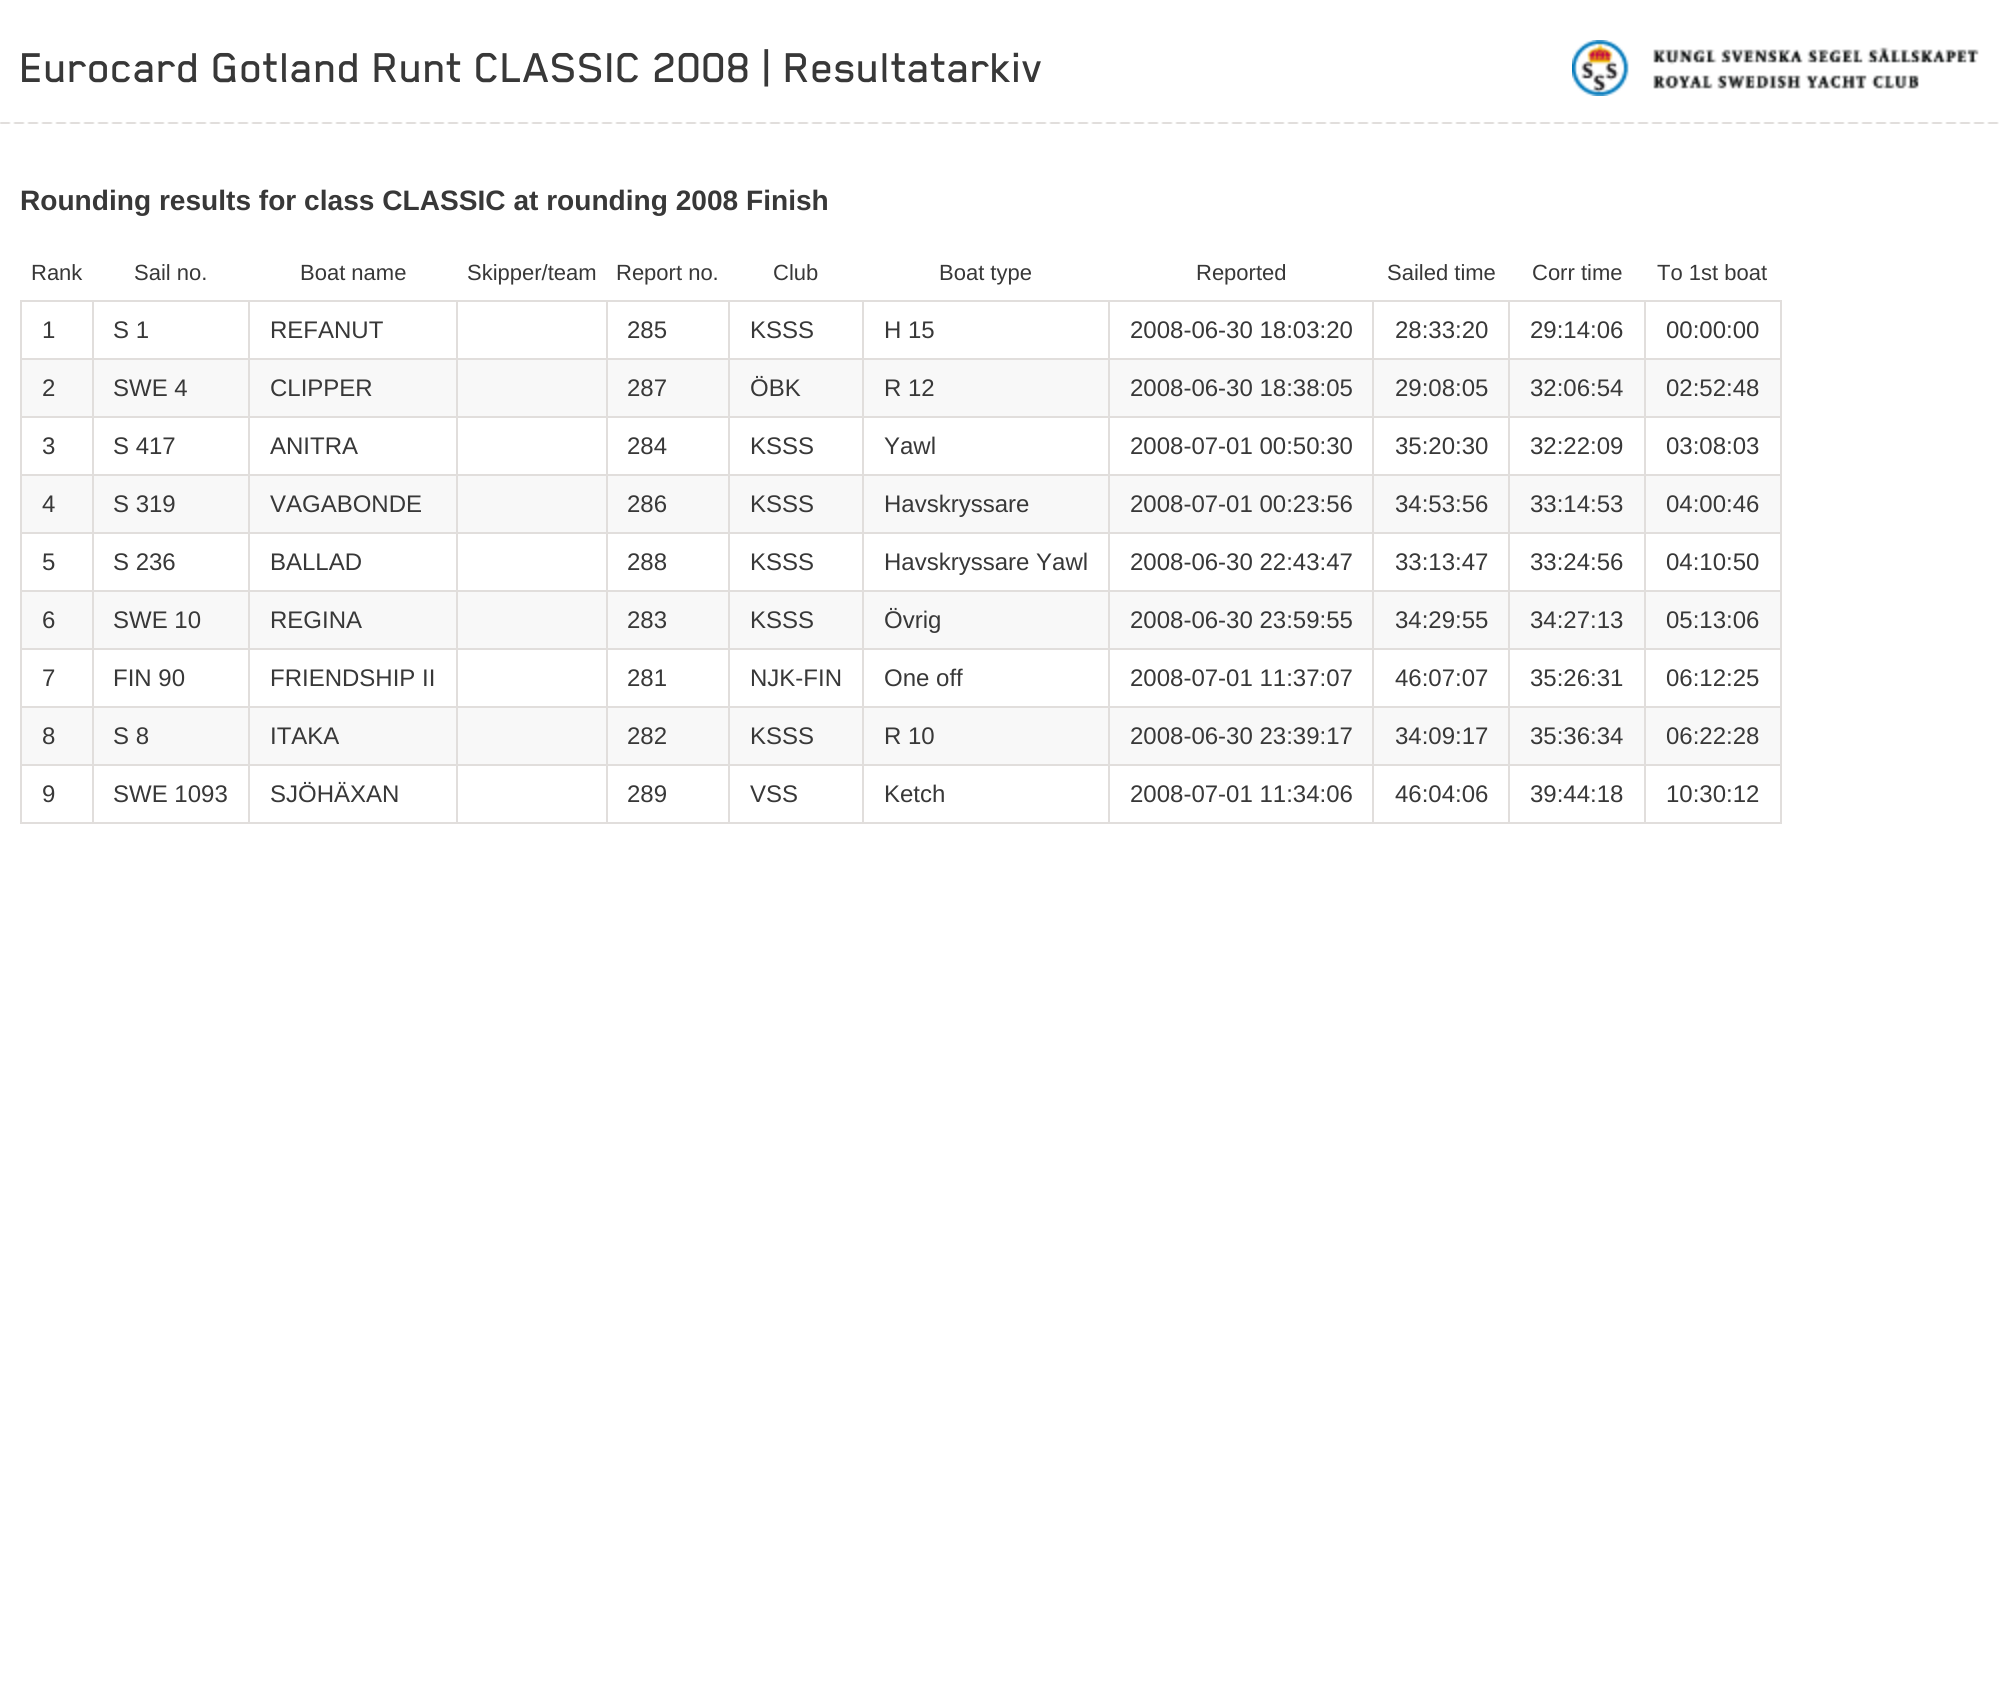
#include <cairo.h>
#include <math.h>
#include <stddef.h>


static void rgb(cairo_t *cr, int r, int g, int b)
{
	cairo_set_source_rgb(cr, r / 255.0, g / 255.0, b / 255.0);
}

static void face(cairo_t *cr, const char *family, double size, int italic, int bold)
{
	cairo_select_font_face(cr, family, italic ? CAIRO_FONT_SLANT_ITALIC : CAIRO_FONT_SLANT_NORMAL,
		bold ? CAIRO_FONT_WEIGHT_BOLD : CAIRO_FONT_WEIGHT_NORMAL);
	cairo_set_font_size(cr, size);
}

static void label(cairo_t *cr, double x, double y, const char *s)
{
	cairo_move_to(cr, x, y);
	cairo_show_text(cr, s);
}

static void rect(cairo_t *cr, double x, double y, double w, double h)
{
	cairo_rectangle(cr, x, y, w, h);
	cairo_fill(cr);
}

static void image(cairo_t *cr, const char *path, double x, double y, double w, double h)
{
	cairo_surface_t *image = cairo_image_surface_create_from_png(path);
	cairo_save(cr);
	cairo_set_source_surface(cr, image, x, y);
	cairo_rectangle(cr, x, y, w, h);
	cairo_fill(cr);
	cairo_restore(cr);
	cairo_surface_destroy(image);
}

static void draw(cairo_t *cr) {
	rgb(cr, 255, 255, 255);
	cairo_paint(cr);
	image(cr, "image0.png", 0, 122, 1999, 2);
	face(cr, "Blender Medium", 48, 0, 0);
	rgb(cr, 56, 56, 56);
	label(cr, 20, 82, "Eurocard Gotland Runt CLASSIC 2008 | Resultatarkiv");
	image(cr, "image1.png", 1572, 40, 407, 56);
	face(cr, "Liberation Sans", 28.1, 0, 1);
	label(cr, 20, 210, "Rounding results for class CLASSIC at rounding 2008 Finish");
	face(cr, "Liberation Sans", 22, 0, 0);
	label(cr, 31, 280, "Rank");
	label(cr, 134, 280, "Sail no.");
	label(cr, 300, 280, "Boat name");
	label(cr, 467, 280, "Skipper/team");
	label(cr, 616, 280, "Report no.");
	label(cr, 773, 280, "Club");
	label(cr, 939, 280, "Boat type");
	label(cr, 1196, 280, "Reported");
	label(cr, 1387, 280, "Sailed time");
	label(cr, 1532, 280, "Corr time");
	label(cr, 1657, 280, "To 1st boat");
	rgb(cr, 225, 222, 220);
	rect(cr, 1644, 300, 138, 2);
	rect(cr, 1644, 358, 138, 2);
	rect(cr, 1644, 416, 138, 2);
	rect(cr, 1644, 474, 138, 2);
	rect(cr, 1644, 532, 138, 2);
	rect(cr, 1644, 590, 138, 2);
	rect(cr, 1644, 648, 138, 2);
	rect(cr, 1644, 706, 138, 2);
	rect(cr, 1644, 764, 138, 2);
	rect(cr, 1780, 764, 2, 60);
	rect(cr, 1644, 822, 138, 2);
	rect(cr, 1644, 764, 2, 60);
	rect(cr, 1508, 764, 138, 2);
	rect(cr, 1644, 706, 2, 60);
	rect(cr, 1508, 706, 138, 2);
	rect(cr, 1644, 648, 2, 60);
	rect(cr, 1508, 648, 138, 2);
	rect(cr, 1644, 590, 2, 60);
	rect(cr, 1508, 590, 138, 2);
	rect(cr, 1644, 532, 2, 60);
	rect(cr, 1508, 532, 138, 2);
	rect(cr, 1644, 474, 2, 60);
	rect(cr, 1508, 474, 138, 2);
	rect(cr, 1644, 416, 2, 60);
	rect(cr, 1508, 416, 138, 2);
	rect(cr, 1644, 358, 2, 60);
	rect(cr, 1508, 358, 138, 2);
	rect(cr, 1644, 300, 2, 60);
	rect(cr, 1508, 300, 138, 2);
	rect(cr, 1508, 822, 138, 2);
	rect(cr, 1508, 764, 2, 60);
	rect(cr, 1372, 764, 138, 2);
	rect(cr, 1508, 706, 2, 60);
	rect(cr, 1372, 706, 138, 2);
	rect(cr, 1508, 648, 2, 60);
	rect(cr, 1372, 648, 138, 2);
	rect(cr, 1508, 590, 2, 60);
	rect(cr, 1372, 590, 138, 2);
	rect(cr, 1508, 532, 2, 60);
	rect(cr, 1372, 532, 138, 2);
	rect(cr, 1508, 474, 2, 60);
	rect(cr, 1372, 474, 138, 2);
	rect(cr, 1508, 416, 2, 60);
	rect(cr, 1372, 416, 138, 2);
	rect(cr, 1508, 358, 2, 60);
	rect(cr, 1372, 358, 138, 2);
	rect(cr, 1508, 300, 2, 60);
	rect(cr, 1372, 300, 138, 2);
	rect(cr, 1372, 822, 138, 2);
	rect(cr, 1372, 764, 2, 60);
	rect(cr, 1108, 764, 266, 2);
	rect(cr, 1372, 706, 2, 60);
	rect(cr, 1108, 706, 266, 2);
	rect(cr, 1372, 648, 2, 60);
	rect(cr, 1108, 648, 266, 2);
	rect(cr, 1372, 590, 2, 60);
	rect(cr, 1108, 590, 266, 2);
	rect(cr, 1372, 532, 2, 60);
	rect(cr, 1108, 532, 266, 2);
	rect(cr, 1372, 474, 2, 60);
	rect(cr, 1108, 474, 266, 2);
	rect(cr, 1372, 416, 2, 60);
	rect(cr, 1108, 416, 266, 2);
	rect(cr, 1372, 358, 2, 60);
	rect(cr, 1108, 358, 266, 2);
	rect(cr, 1372, 300, 2, 60);
	rect(cr, 1108, 300, 266, 2);
	rect(cr, 1108, 822, 266, 2);
	rect(cr, 1108, 764, 2, 60);
	rect(cr, 862, 764, 248, 2);
	rect(cr, 1108, 706, 2, 60);
	rect(cr, 862, 706, 248, 2);
	rect(cr, 1108, 648, 2, 60);
	rect(cr, 862, 648, 248, 2);
	rect(cr, 1108, 590, 2, 60);
	rect(cr, 862, 590, 248, 2);
	rect(cr, 1108, 532, 2, 60);
	rect(cr, 862, 532, 248, 2);
	rect(cr, 1108, 474, 2, 60);
	rect(cr, 862, 474, 248, 2);
	rect(cr, 1108, 416, 2, 60);
	rect(cr, 862, 416, 248, 2);
	rect(cr, 1108, 358, 2, 60);
	rect(cr, 862, 358, 248, 2);
	rect(cr, 1108, 300, 2, 60);
	rect(cr, 862, 300, 248, 2);
	rect(cr, 862, 822, 248, 2);
	rect(cr, 862, 764, 2, 60);
	rect(cr, 728, 764, 136, 2);
	rect(cr, 862, 706, 2, 60);
	rect(cr, 728, 706, 136, 2);
	rect(cr, 862, 648, 2, 60);
	rect(cr, 728, 648, 136, 2);
	rect(cr, 862, 590, 2, 60);
	rect(cr, 728, 590, 136, 2);
	rect(cr, 862, 532, 2, 60);
	rect(cr, 728, 532, 136, 2);
	rect(cr, 862, 474, 2, 60);
	rect(cr, 728, 474, 136, 2);
	rect(cr, 862, 416, 2, 60);
	rect(cr, 728, 416, 136, 2);
	rect(cr, 862, 358, 2, 60);
	rect(cr, 728, 358, 136, 2);
	rect(cr, 862, 300, 2, 60);
	rect(cr, 728, 300, 136, 2);
	rect(cr, 728, 822, 136, 2);
	rect(cr, 728, 764, 2, 60);
	rect(cr, 606, 764, 124, 2);
	rect(cr, 728, 706, 2, 60);
	rect(cr, 606, 706, 124, 2);
	rect(cr, 728, 648, 2, 60);
	rect(cr, 606, 648, 124, 2);
	rect(cr, 728, 590, 2, 60);
	rect(cr, 606, 590, 124, 2);
	rect(cr, 728, 532, 2, 60);
	rect(cr, 606, 532, 124, 2);
	rect(cr, 728, 474, 2, 60);
	rect(cr, 606, 474, 124, 2);
	rect(cr, 728, 416, 2, 60);
	rect(cr, 606, 416, 124, 2);
	rect(cr, 728, 358, 2, 60);
	rect(cr, 606, 358, 124, 2);
	rect(cr, 728, 300, 2, 60);
	rect(cr, 606, 300, 124, 2);
	rect(cr, 606, 822, 124, 2);
	rect(cr, 606, 764, 2, 60);
	rect(cr, 456, 764, 152, 2);
	rect(cr, 606, 706, 2, 60);
	rect(cr, 456, 706, 152, 2);
	rect(cr, 606, 648, 2, 60);
	rect(cr, 456, 648, 152, 2);
	rect(cr, 606, 590, 2, 60);
	rect(cr, 456, 590, 152, 2);
	rect(cr, 606, 532, 2, 60);
	rect(cr, 456, 532, 152, 2);
	rect(cr, 606, 474, 2, 60);
	rect(cr, 456, 474, 152, 2);
	rect(cr, 606, 416, 2, 60);
	rect(cr, 456, 416, 152, 2);
	rect(cr, 606, 358, 2, 60);
	rect(cr, 456, 358, 152, 2);
	rect(cr, 606, 300, 2, 60);
	rect(cr, 456, 300, 152, 2);
	rect(cr, 456, 822, 152, 2);
	rect(cr, 456, 764, 2, 60);
	rect(cr, 248, 764, 210, 2);
	rect(cr, 456, 706, 2, 60);
	rect(cr, 248, 706, 210, 2);
	rect(cr, 456, 648, 2, 60);
	rect(cr, 248, 648, 210, 2);
	rect(cr, 456, 590, 2, 60);
	rect(cr, 248, 590, 210, 2);
	rect(cr, 456, 532, 2, 60);
	rect(cr, 248, 532, 210, 2);
	rect(cr, 456, 474, 2, 60);
	rect(cr, 248, 474, 210, 2);
	rect(cr, 456, 416, 2, 60);
	rect(cr, 248, 416, 210, 2);
	rect(cr, 456, 358, 2, 60);
	rect(cr, 248, 358, 210, 2);
	rect(cr, 456, 300, 2, 60);
	rect(cr, 248, 300, 210, 2);
	rect(cr, 248, 822, 210, 2);
	rect(cr, 248, 764, 2, 60);
	rect(cr, 92, 764, 158, 2);
	rect(cr, 248, 706, 2, 60);
	rect(cr, 92, 706, 158, 2);
	rect(cr, 248, 648, 2, 60);
	rect(cr, 92, 648, 158, 2);
	rect(cr, 248, 590, 2, 60);
	rect(cr, 92, 590, 158, 2);
	rect(cr, 248, 532, 2, 60);
	rect(cr, 92, 532, 158, 2);
	rect(cr, 248, 474, 2, 60);
	rect(cr, 92, 474, 158, 2);
	rect(cr, 248, 416, 2, 60);
	rect(cr, 92, 416, 158, 2);
	rect(cr, 248, 358, 2, 60);
	rect(cr, 92, 358, 158, 2);
	rect(cr, 248, 300, 2, 60);
	rect(cr, 92, 300, 158, 2);
	rect(cr, 92, 822, 158, 2);
	rect(cr, 92, 764, 2, 60);
	rect(cr, 20, 764, 74, 2);
	rect(cr, 92, 706, 2, 60);
	rect(cr, 20, 706, 74, 2);
	rect(cr, 92, 648, 2, 60);
	rect(cr, 20, 648, 74, 2);
	rect(cr, 92, 590, 2, 60);
	rect(cr, 20, 590, 74, 2);
	rect(cr, 92, 532, 2, 60);
	rect(cr, 20, 532, 74, 2);
	rect(cr, 92, 474, 2, 60);
	rect(cr, 20, 474, 74, 2);
	rect(cr, 92, 416, 2, 60);
	rect(cr, 20, 416, 74, 2);
	rect(cr, 92, 358, 2, 60);
	rect(cr, 20, 358, 74, 2);
	rect(cr, 92, 300, 2, 60);
	rect(cr, 20, 300, 74, 2);
	rect(cr, 20, 822, 74, 2);
	rect(cr, 20, 764, 2, 60);
	rect(cr, 20, 706, 2, 60);
	rect(cr, 20, 648, 2, 60);
	rect(cr, 20, 590, 2, 60);
	rect(cr, 20, 532, 2, 60);
	rect(cr, 20, 474, 2, 60);
	rect(cr, 20, 416, 2, 60);
	rect(cr, 20, 358, 2, 60);
	rect(cr, 20, 300, 2, 60);
	face(cr, "Liberation Sans", 24, 0, 0);
	rgb(cr, 56, 56, 56);
	label(cr, 42, 338, "1");
	label(cr, 113, 338, "S 1");
	label(cr, 270, 338, "REFANUT");
	label(cr, 627, 338, "285");
	label(cr, 750, 338, "KSSS");
	label(cr, 884, 338, "H 15");
	label(cr, 1130, 338, "2008-06-30 18:03:20");
	label(cr, 1395, 338, "28:33:20");
	label(cr, 1530, 338, "29:14:06");
	rgb(cr, 225, 222, 220);
	rect(cr, 1780, 706, 2, 60);
	rect(cr, 1780, 648, 2, 60);
	rect(cr, 1780, 590, 2, 60);
	rect(cr, 1780, 532, 2, 60);
	rect(cr, 1780, 474, 2, 60);
	rect(cr, 1780, 416, 2, 60);
	rect(cr, 1780, 358, 2, 60);
	rect(cr, 1780, 300, 2, 60);
	rgb(cr, 56, 56, 56);
	label(cr, 1666, 338, "00:00:00");
	rgb(cr, 248, 248, 248);
	rect(cr, 22, 360, 70, 56);
	rgb(cr, 56, 56, 56);
	label(cr, 42, 396, "2");
	rgb(cr, 248, 248, 248);
	rect(cr, 94, 360, 154, 56);
	rgb(cr, 56, 56, 56);
	label(cr, 113, 396, "SWE 4");
	rgb(cr, 248, 248, 248);
	rect(cr, 250, 360, 206, 56);
	rgb(cr, 56, 56, 56);
	label(cr, 270, 396, "CLIPPER");
	rgb(cr, 248, 248, 248);
	rect(cr, 458, 360, 148, 56);
	rect(cr, 608, 360, 120, 56);
	rgb(cr, 56, 56, 56);
	label(cr, 627, 396, "287");
	rgb(cr, 248, 248, 248);
	rect(cr, 730, 360, 132, 56);
	rgb(cr, 56, 56, 56);
	label(cr, 750, 396, "ÖBK");
	rgb(cr, 248, 248, 248);
	rect(cr, 864, 360, 244, 56);
	rgb(cr, 56, 56, 56);
	label(cr, 884, 396, "R 12");
	rgb(cr, 248, 248, 248);
	rect(cr, 1110, 360, 262, 56);
	rgb(cr, 56, 56, 56);
	label(cr, 1130, 396, "2008-06-30 18:38:05");
	rgb(cr, 248, 248, 248);
	rect(cr, 1374, 360, 134, 56);
	rgb(cr, 56, 56, 56);
	label(cr, 1395, 396, "29:08:05");
	rgb(cr, 248, 248, 248);
	rect(cr, 1510, 360, 134, 56);
	rgb(cr, 56, 56, 56);
	label(cr, 1530, 396, "32:06:54");
	rgb(cr, 248, 248, 248);
	rect(cr, 1646, 360, 134, 56);
	rgb(cr, 56, 56, 56);
	label(cr, 1666, 396, "02:52:48");
	label(cr, 42, 454, "3");
	label(cr, 113, 454, "S 417");
	label(cr, 270, 454, "ANITRA");
	label(cr, 627, 454, "284");
	label(cr, 750, 454, "KSSS");
	label(cr, 884, 454, "Yawl");
	label(cr, 1130, 454, "2008-07-01 00:50:30");
	label(cr, 1395, 454, "35:20:30");
	label(cr, 1530, 454, "32:22:09");
	label(cr, 1666, 454, "03:08:03");
	rgb(cr, 248, 248, 248);
	rect(cr, 22, 476, 70, 56);
	rgb(cr, 56, 56, 56);
	label(cr, 42, 512, "4");
	rgb(cr, 248, 248, 248);
	rect(cr, 94, 476, 154, 56);
	rgb(cr, 56, 56, 56);
	label(cr, 113, 512, "S 319");
	rgb(cr, 248, 248, 248);
	rect(cr, 250, 476, 206, 56);
	rgb(cr, 56, 56, 56);
	label(cr, 270, 512, "VAGABONDE");
	rgb(cr, 248, 248, 248);
	rect(cr, 458, 476, 148, 56);
	rect(cr, 608, 476, 120, 56);
	rgb(cr, 56, 56, 56);
	label(cr, 627, 512, "286");
	rgb(cr, 248, 248, 248);
	rect(cr, 730, 476, 132, 56);
	rgb(cr, 56, 56, 56);
	label(cr, 750, 512, "KSSS");
	rgb(cr, 248, 248, 248);
	rect(cr, 864, 476, 244, 56);
	rgb(cr, 56, 56, 56);
	label(cr, 884, 512, "Havskryssare");
	rgb(cr, 248, 248, 248);
	rect(cr, 1110, 476, 262, 56);
	rgb(cr, 56, 56, 56);
	label(cr, 1130, 512, "2008-07-01 00:23:56");
	rgb(cr, 248, 248, 248);
	rect(cr, 1374, 476, 134, 56);
	rgb(cr, 56, 56, 56);
	label(cr, 1395, 512, "34:53:56");
	rgb(cr, 248, 248, 248);
	rect(cr, 1510, 476, 134, 56);
	rgb(cr, 56, 56, 56);
	label(cr, 1530, 512, "33:14:53");
	rgb(cr, 248, 248, 248);
	rect(cr, 1646, 476, 134, 56);
	rgb(cr, 56, 56, 56);
	label(cr, 1666, 512, "04:00:46");
	label(cr, 42, 570, "5");
	label(cr, 113, 570, "S 236");
	label(cr, 270, 570, "BALLAD");
	label(cr, 627, 570, "288");
	label(cr, 750, 570, "KSSS");
	label(cr, 884, 570, "Havskryssare Yawl");
	label(cr, 1130, 570, "2008-06-30 22:43:47");
	label(cr, 1395, 570, "33:13:47");
	label(cr, 1530, 570, "33:24:56");
	label(cr, 1666, 570, "04:10:50");
	rgb(cr, 248, 248, 248);
	rect(cr, 22, 592, 70, 56);
	rgb(cr, 56, 56, 56);
	label(cr, 42, 628, "6");
	rgb(cr, 248, 248, 248);
	rect(cr, 94, 592, 154, 56);
	rgb(cr, 56, 56, 56);
	label(cr, 113, 628, "SWE 10");
	rgb(cr, 248, 248, 248);
	rect(cr, 250, 592, 206, 56);
	rgb(cr, 56, 56, 56);
	label(cr, 270, 628, "REGINA");
	rgb(cr, 248, 248, 248);
	rect(cr, 458, 592, 148, 56);
	rect(cr, 608, 592, 120, 56);
	rgb(cr, 56, 56, 56);
	label(cr, 627, 628, "283");
	rgb(cr, 248, 248, 248);
	rect(cr, 730, 592, 132, 56);
	rgb(cr, 56, 56, 56);
	label(cr, 750, 628, "KSSS");
	rgb(cr, 248, 248, 248);
	rect(cr, 864, 592, 244, 56);
	rgb(cr, 56, 56, 56);
	label(cr, 884, 628, "Övrig");
	rgb(cr, 248, 248, 248);
	rect(cr, 1110, 592, 262, 56);
	rgb(cr, 56, 56, 56);
	label(cr, 1130, 628, "2008-06-30 23:59:55");
	rgb(cr, 248, 248, 248);
	rect(cr, 1374, 592, 134, 56);
	rgb(cr, 56, 56, 56);
	label(cr, 1395, 628, "34:29:55");
	rgb(cr, 248, 248, 248);
	rect(cr, 1510, 592, 134, 56);
	rgb(cr, 56, 56, 56);
	label(cr, 1530, 628, "34:27:13");
	rgb(cr, 248, 248, 248);
	rect(cr, 1646, 592, 134, 56);
	rgb(cr, 56, 56, 56);
	label(cr, 1666, 628, "05:13:06");
	label(cr, 42, 686, "7");
	label(cr, 113, 686, "FIN 90");
	label(cr, 270, 686, "FRIENDSHIP II");
	label(cr, 627, 686, "281");
	label(cr, 750, 686, "NJK-FIN");
	label(cr, 884, 686, "One off");
	label(cr, 1130, 686, "2008-07-01 11:37:07");
	label(cr, 1395, 686, "46:07:07");
	label(cr, 1530, 686, "35:26:31");
	label(cr, 1666, 686, "06:12:25");
	rgb(cr, 248, 248, 248);
	rect(cr, 22, 708, 70, 56);
	rgb(cr, 56, 56, 56);
	label(cr, 42, 744, "8");
	rgb(cr, 248, 248, 248);
	rect(cr, 94, 708, 154, 56);
	rgb(cr, 56, 56, 56);
	label(cr, 113, 744, "S 8");
	rgb(cr, 248, 248, 248);
	rect(cr, 250, 708, 206, 56);
	rgb(cr, 56, 56, 56);
	label(cr, 270, 744, "ITAKA");
	rgb(cr, 248, 248, 248);
	rect(cr, 458, 708, 148, 56);
	rect(cr, 608, 708, 120, 56);
	rgb(cr, 56, 56, 56);
	label(cr, 627, 744, "282");
	rgb(cr, 248, 248, 248);
	rect(cr, 730, 708, 132, 56);
	rgb(cr, 56, 56, 56);
	label(cr, 750, 744, "KSSS");
	rgb(cr, 248, 248, 248);
	rect(cr, 864, 708, 244, 56);
	rgb(cr, 56, 56, 56);
	label(cr, 884, 744, "R 10");
	rgb(cr, 248, 248, 248);
	rect(cr, 1110, 708, 262, 56);
	rgb(cr, 56, 56, 56);
	label(cr, 1130, 744, "2008-06-30 23:39:17");
	rgb(cr, 248, 248, 248);
	rect(cr, 1374, 708, 134, 56);
	rgb(cr, 56, 56, 56);
	label(cr, 1395, 744, "34:09:17");
	rgb(cr, 248, 248, 248);
	rect(cr, 1510, 708, 134, 56);
	rgb(cr, 56, 56, 56);
	label(cr, 1530, 744, "35:36:34");
	rgb(cr, 248, 248, 248);
	rect(cr, 1646, 708, 134, 56);
	rgb(cr, 56, 56, 56);
	label(cr, 1666, 744, "06:22:28");
	label(cr, 42, 802, "9");
	label(cr, 113, 802, "SWE 1093");
	label(cr, 270, 802, "SJÖHÄXAN");
	label(cr, 627, 802, "289");
	label(cr, 750, 802, "VSS");
	label(cr, 884, 802, "Ketch");
	label(cr, 1130, 802, "2008-07-01 11:34:06");
	label(cr, 1395, 802, "46:04:06");
	label(cr, 1530, 802, "39:44:18");
	label(cr, 1666, 802, "10:30:12");
}

int main(void) {
	cairo_surface_t *surface = cairo_image_surface_create(CAIRO_FORMAT_RGB24, 2001, 1686);
	cairo_t *cr = cairo_create(surface);
	cairo_font_options_t *options = cairo_font_options_create();
	cairo_font_options_set_hint_metrics(options, CAIRO_HINT_METRICS_OFF);
	cairo_font_options_set_hint_style(options, CAIRO_HINT_STYLE_NONE);
	cairo_set_font_options(cr, options);
	cairo_set_miter_limit(cr, 4);
	draw(cr);
	cairo_surface_write_to_png(surface, "render.png");
	cairo_font_options_destroy(options);
	cairo_destroy(cr);
	cairo_surface_destroy(surface);
	return 0;
}
